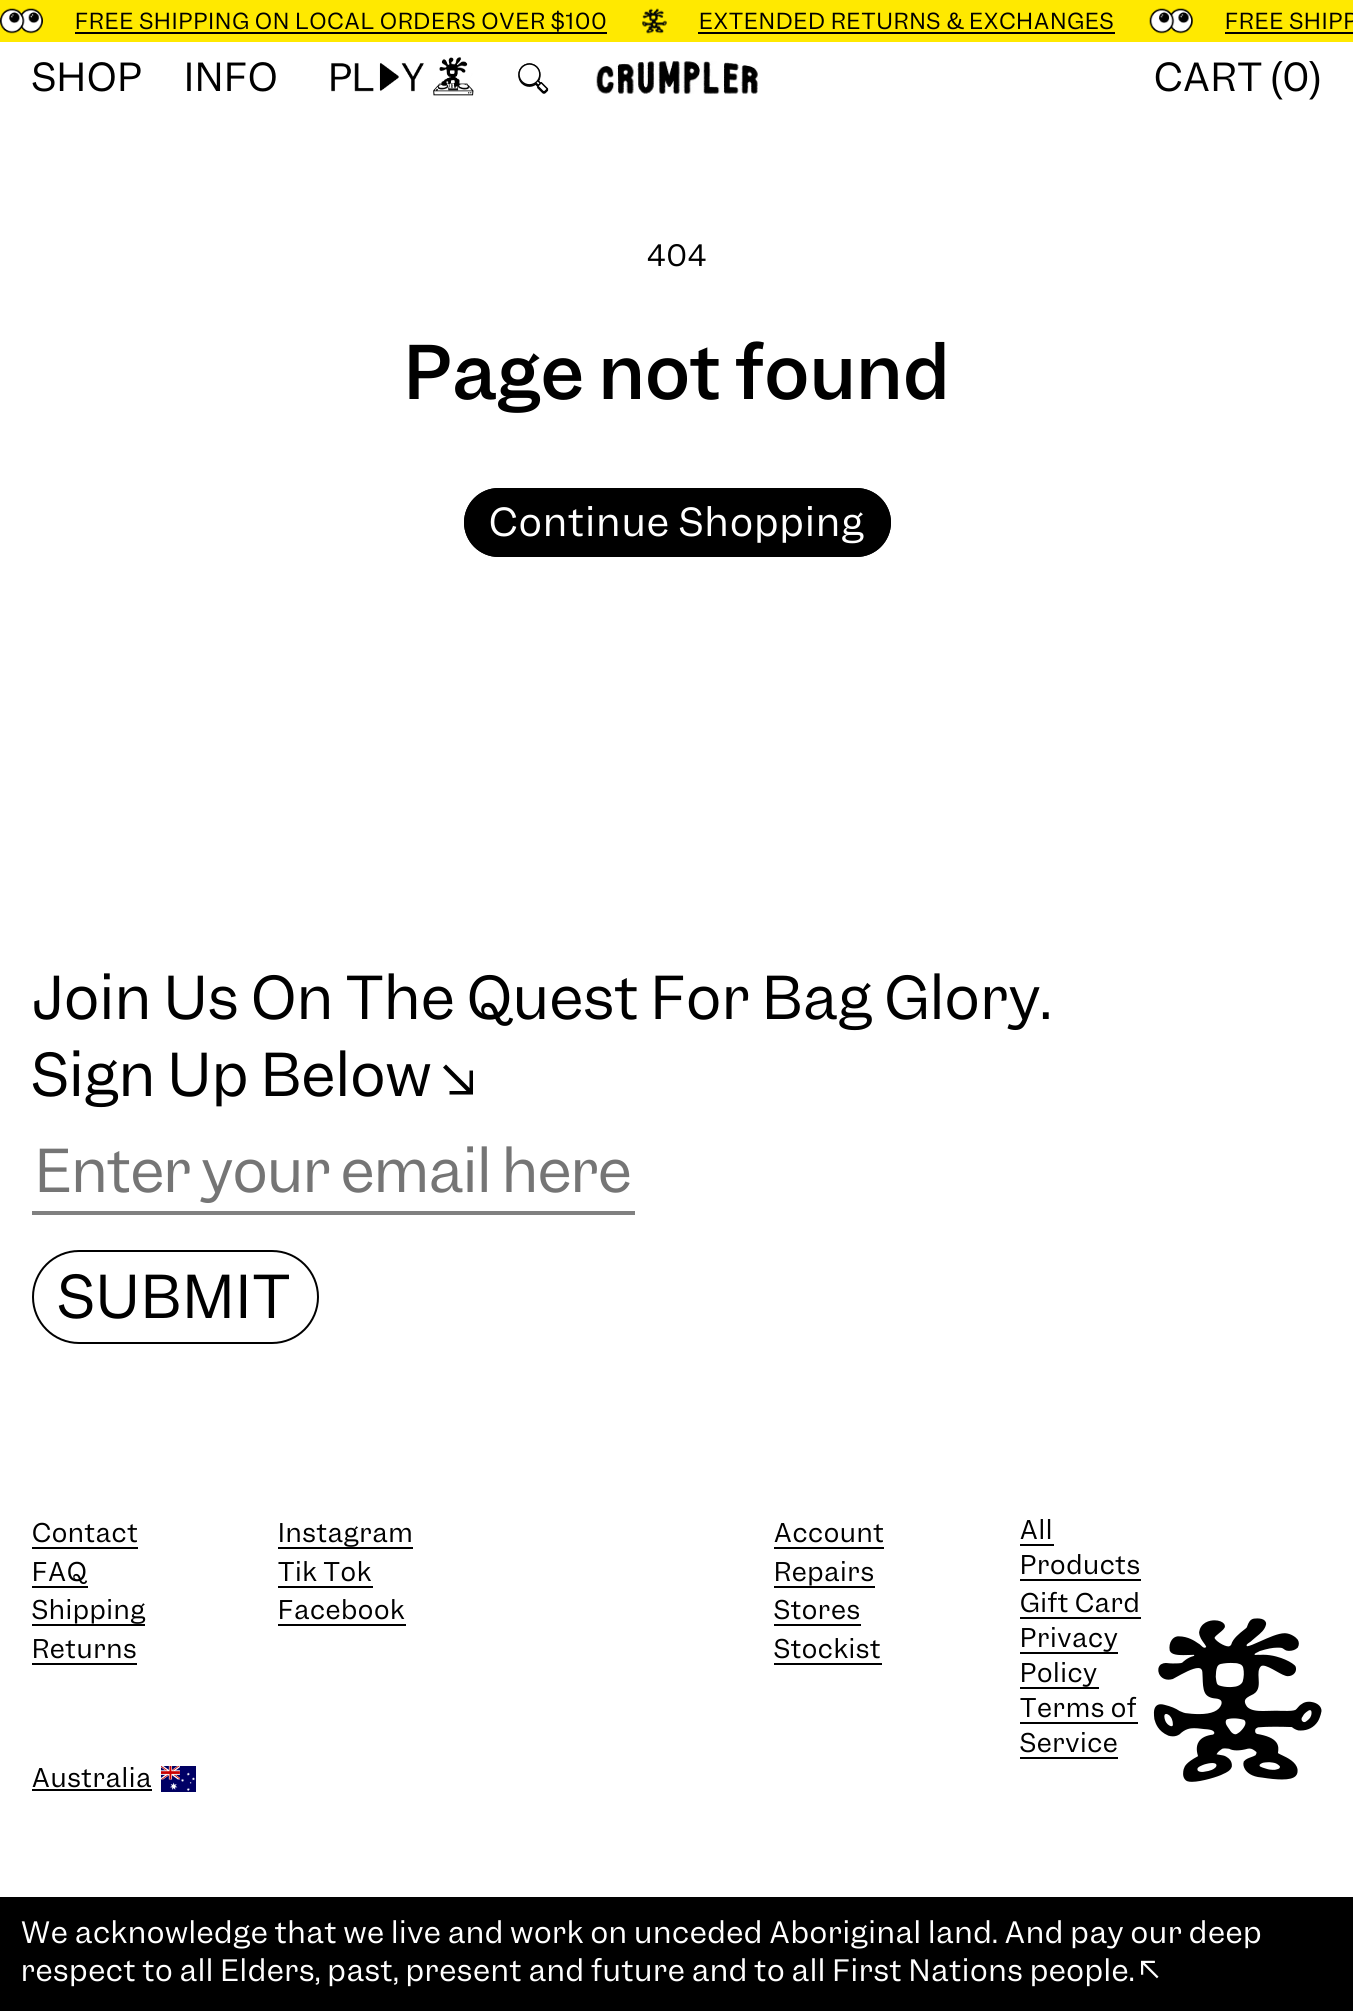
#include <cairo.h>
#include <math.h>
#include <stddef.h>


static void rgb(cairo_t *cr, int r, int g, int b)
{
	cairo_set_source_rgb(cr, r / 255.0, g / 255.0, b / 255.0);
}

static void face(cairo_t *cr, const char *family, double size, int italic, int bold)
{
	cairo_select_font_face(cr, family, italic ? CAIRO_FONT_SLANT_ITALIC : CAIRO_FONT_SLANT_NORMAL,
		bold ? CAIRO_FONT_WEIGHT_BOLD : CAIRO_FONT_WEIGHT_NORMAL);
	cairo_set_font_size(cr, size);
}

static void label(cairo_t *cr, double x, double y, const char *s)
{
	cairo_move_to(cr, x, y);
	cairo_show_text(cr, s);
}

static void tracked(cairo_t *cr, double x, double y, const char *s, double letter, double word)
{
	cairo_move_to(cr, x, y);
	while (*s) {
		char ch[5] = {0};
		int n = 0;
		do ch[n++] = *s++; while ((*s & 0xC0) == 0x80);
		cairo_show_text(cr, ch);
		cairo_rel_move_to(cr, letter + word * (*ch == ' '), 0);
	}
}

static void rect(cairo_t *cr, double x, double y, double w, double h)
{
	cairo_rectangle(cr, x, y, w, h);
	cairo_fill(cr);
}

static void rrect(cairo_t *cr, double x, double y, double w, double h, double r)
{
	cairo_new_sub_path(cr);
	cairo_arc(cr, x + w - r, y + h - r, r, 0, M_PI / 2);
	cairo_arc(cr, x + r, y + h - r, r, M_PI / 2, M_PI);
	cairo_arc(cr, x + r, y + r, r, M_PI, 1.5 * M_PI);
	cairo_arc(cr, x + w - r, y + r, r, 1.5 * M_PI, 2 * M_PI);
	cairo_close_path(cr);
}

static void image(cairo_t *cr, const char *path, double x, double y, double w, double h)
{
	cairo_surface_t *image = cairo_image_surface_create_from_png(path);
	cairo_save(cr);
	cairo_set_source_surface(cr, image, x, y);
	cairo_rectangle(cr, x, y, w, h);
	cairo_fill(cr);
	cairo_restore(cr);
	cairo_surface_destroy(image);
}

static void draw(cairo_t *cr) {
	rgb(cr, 255, 255, 255);
	cairo_paint(cr);
	rgb(cr, 255, 233, 0);
	rect(cr, 0, 0, 1353, 42);
	image(cr, "image0.png", 0, 8, 43, 26);
	face(cr, "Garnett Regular", 21, 0, 0);
	rgb(cr, 0, 0, 0);
	tracked(cr, 75, 29, "FREE SHIPPING ON LOCAL ORDERS OVER $100", 1.05, 0);
	rect(cr, 75, 32, 532, 2);
	image(cr, "image1.png", 642, 8, 25, 26);
	tracked(cr, 699, 29, "EXTENDED RETURNS & EXCHANGES", 1.05, 0);
	rect(cr, 698, 32, 417, 2);
	image(cr, "image2.png", 1149, 8, 44, 26);
	tracked(cr, 1225, 29, "FREE SHIPP", 1.05, 0);
	rect(cr, 1225, 32, 128, 2);
	face(cr, "Garnett Regular", 36.75, 0, 0);
	tracked(cr, 32, 91, "SHOP", 1.05, 0);
	tracked(cr, 184, 91, "INFO", 1.05, 0);
	image(cr, "image3.png", 331, 62, 93, 30);
	image(cr, "image4.png", 433, 57, 41, 39);
	image(cr, "image5.png", 518, 63, 31, 31);
	image(cr, "image6.png", 596, 61, 162, 33);
	tracked(cr, 1154, 91, "CART", 1.05, 0);
	tracked(cr, 1270, 91, "(0)", 1.05, 0);
	face(cr, "Garnett Regular", 28, 0, 0);
	tracked(cr, 647, 266, "404", 1.05, 0);
	face(cr, "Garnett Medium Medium", 70, 0, 0);
	tracked(cr, 404, 399, "Page not found", 1.05, 0);
	rrect(cr, 464, 488, 427, 69, 34.5);
	cairo_fill(cr);
	rrect(cr, 465, 489, 425, 67, 33.5);
	cairo_stroke(cr);
	face(cr, "Garnett Regular", 36.75, 0, 0);
	rgb(cr, 255, 255, 255);
	tracked(cr, 489, 536, "Continue Shopping", 1.75, 0);
	face(cr, "Garnett Regular", 56, 0, 0);
	rgb(cr, 0, 0, 0);
	tracked(cr, 32, 1019, "Join Us On The Quest For Bag Glory.", 1.05, 0);
	tracked(cr, 32, 1096, "Sign Up Below", 1.05, 0);
	cairo_new_path(cr);
	cairo_move_to(cr, 449.5, 1094.5);
	cairo_line_to(cr, 473, 1094.5);
	cairo_line_to(cr, 473, 1070.5);
	cairo_line_to(cr, 469.5, 1070.5);
	cairo_line_to(cr, 469.5, 1088);
	cairo_line_to(cr, 446, 1064.5);
	cairo_line_to(cr, 443, 1067.5);
	cairo_line_to(cr, 466.5, 1091);
	cairo_line_to(cr, 449.5, 1091);
	cairo_close_path(cr);
	cairo_fill(cr);
	rgb(cr, 128, 128, 128);
	rect(cr, 32, 1211, 603, 4);
	rgb(cr, 117, 117, 117);
	label(cr, 35, 1192, "Enter your email here");
	rrect(cr, 33, 1251, 285, 92, 46);
	rgb(cr, 0, 0, 0);
	cairo_stroke(cr);
	tracked(cr, 58, 1318, "SUBMIT", 1.75, 0);
	face(cr, "Garnett Regular", 24.5, 0, 0);
	tracked(cr, 32, 1542, "Contact", 1.05, 0);
	rect(cr, 32, 1547, 106, 2);
	tracked(cr, 32, 1581, "FAQ", 1.05, 0);
	rect(cr, 32, 1586, 56, 2);
	tracked(cr, 32, 1619, "Shipping", 1.05, 0);
	rect(cr, 32, 1624, 113, 2);
	tracked(cr, 32, 1658, "Returns", 1.05, 0);
	rect(cr, 32, 1663, 105, 2);
	tracked(cr, 278, 1542, "Instagram", 1.05, 0);
	rect(cr, 278, 1547, 135, 2);
	tracked(cr, 278, 1581, "Tik Tok", 1.05, 0);
	rect(cr, 278, 1586, 95, 2);
	tracked(cr, 278, 1619, "Facebook", 1.05, 0);
	rect(cr, 278, 1624, 128, 2);
	tracked(cr, 774, 1542, "Account", 1.05, 0);
	rect(cr, 774, 1547, 110, 2);
	tracked(cr, 774, 1581, "Repairs", 1.05, 0);
	rect(cr, 774, 1586, 101, 2);
	tracked(cr, 774, 1619, "Stores", 1.05, 0);
	rect(cr, 774, 1624, 87, 2);
	tracked(cr, 774, 1658, "Stockist", 1.05, 0);
	rect(cr, 774, 1663, 108, 2);
	tracked(cr, 1020, 1539, "All", 1.05, 0);
	rect(cr, 1020, 1544, 34, 2);
	tracked(cr, 1020, 1574, "Products", 1.05, 0);
	rect(cr, 1020, 1579, 121, 2);
	tracked(cr, 1020, 1612, "Gift Card", 1.05, 0);
	rect(cr, 1020, 1617, 121, 2);
	tracked(cr, 1020, 1647, "Privacy", 1.05, 0);
	rect(cr, 1020, 1652, 98, 2);
	tracked(cr, 1020, 1682, "Policy", 1.05, 0);
	rect(cr, 1020, 1687, 79, 2);
	tracked(cr, 1020, 1717, "Terms of", 1.05, 0);
	rect(cr, 1020, 1722, 118, 2);
	tracked(cr, 1020, 1752, "Service", 1.05, 0);
	rect(cr, 1020, 1757, 98, 2);
	tracked(cr, 32, 1787, "Australia", 1.05, 0);
	rect(cr, 32, 1789, 120, 2);
	image(cr, "image7.png", 161, 1766, 35, 26);
	cairo_rectangle(cr, 162, 1767, 33, 24);
	cairo_set_source_rgba(cr, 0, 0, 0, 0.05);
	cairo_stroke(cr);
	image(cr, "image8.png", 1153, 1618, 169, 164);
	cairo_rectangle(cr, 1, 1898, 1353, 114);
	rgb(cr, 0, 0, 0);
	cairo_stroke(cr);
	rect(cr, 2, 1899, 1351, 112);
	face(cr, "Garnett Regular", 28, 0, 0);
	rgb(cr, 255, 255, 255);
	tracked(cr, 21, 1943, "We acknowledge that we live and work on unceded Aboriginal land. And pay our deep", 1.05, 0);
	tracked(cr, 21, 1981, "respect to all Elders, past, present and future and to all First Nations people.", 1.05, 0);
	image(cr, "image9.png", 1141, 1960, 18, 19);
}

int main(void) {
	cairo_surface_t *surface = cairo_image_surface_create(CAIRO_FORMAT_RGB24, 1353, 2011);
	cairo_t *cr = cairo_create(surface);
	cairo_font_options_t *options = cairo_font_options_create();
	cairo_font_options_set_hint_metrics(options, CAIRO_HINT_METRICS_OFF);
	cairo_font_options_set_hint_style(options, CAIRO_HINT_STYLE_NONE);
	cairo_set_font_options(cr, options);
	cairo_set_miter_limit(cr, 4);
	draw(cr);
	cairo_surface_write_to_png(surface, "render.png");
	cairo_font_options_destroy(options);
	cairo_destroy(cr);
	cairo_surface_destroy(surface);
	return 0;
}
